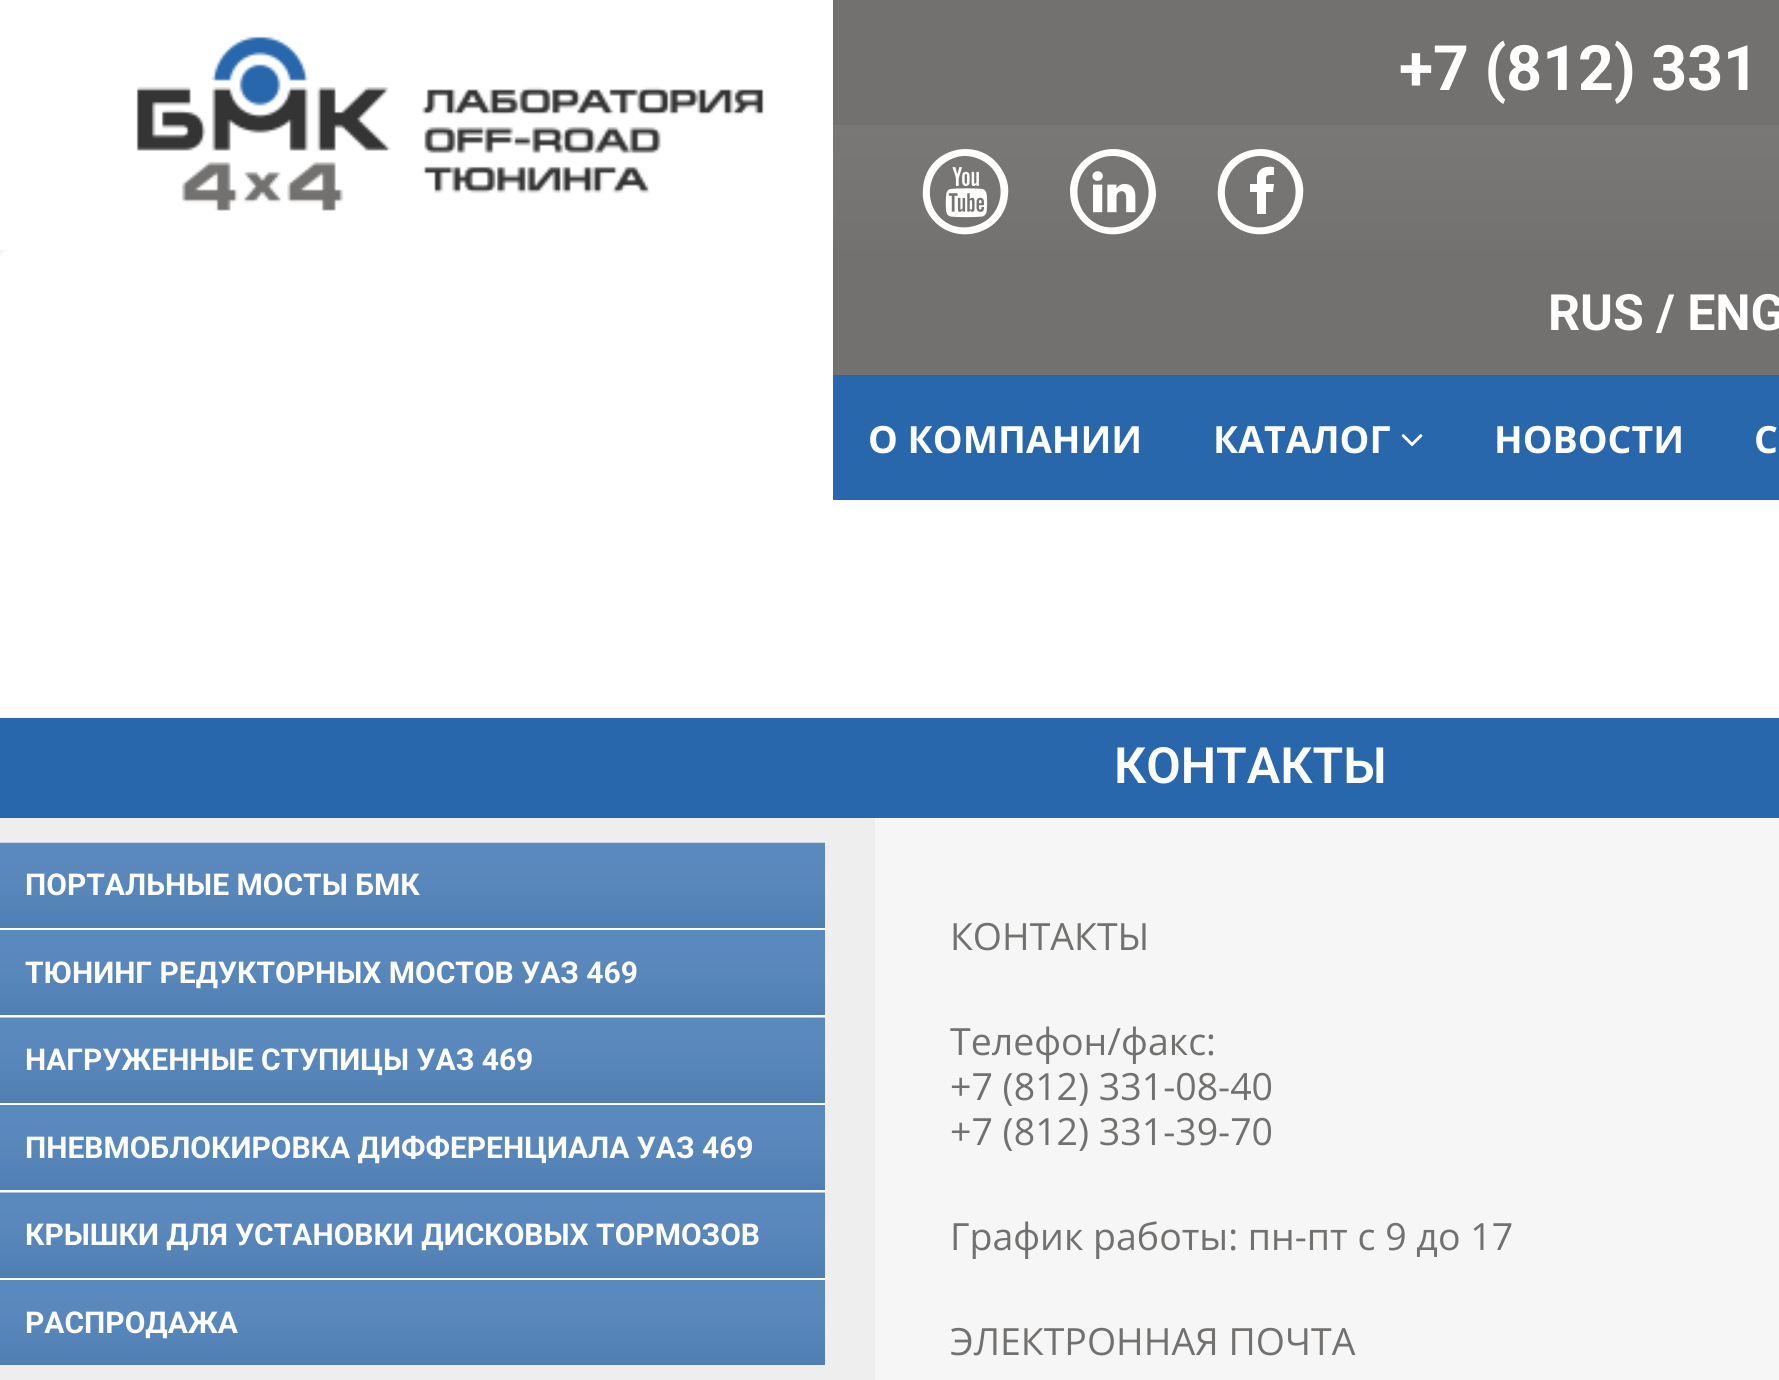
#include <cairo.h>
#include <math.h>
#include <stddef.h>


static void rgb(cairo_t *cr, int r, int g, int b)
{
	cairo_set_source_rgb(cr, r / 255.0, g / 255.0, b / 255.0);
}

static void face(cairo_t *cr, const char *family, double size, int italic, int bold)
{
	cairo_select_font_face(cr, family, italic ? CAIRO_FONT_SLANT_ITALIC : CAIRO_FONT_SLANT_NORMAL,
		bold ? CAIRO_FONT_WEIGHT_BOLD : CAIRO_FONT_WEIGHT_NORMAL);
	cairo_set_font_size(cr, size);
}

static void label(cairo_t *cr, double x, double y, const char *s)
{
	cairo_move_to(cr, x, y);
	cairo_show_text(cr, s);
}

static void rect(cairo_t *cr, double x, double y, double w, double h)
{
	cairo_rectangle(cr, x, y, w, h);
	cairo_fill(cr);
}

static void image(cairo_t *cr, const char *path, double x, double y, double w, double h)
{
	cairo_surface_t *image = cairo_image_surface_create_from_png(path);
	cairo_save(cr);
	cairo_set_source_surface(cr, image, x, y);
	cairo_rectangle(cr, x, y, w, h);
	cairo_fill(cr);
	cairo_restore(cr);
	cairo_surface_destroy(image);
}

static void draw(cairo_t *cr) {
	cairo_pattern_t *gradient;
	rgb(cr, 255, 255, 255);
	cairo_paint(cr);
	image(cr, "image0.png", 0, 0, 833, 250);
	rgb(cr, 114, 113, 111);
	rect(cr, 833, 0, 946, 125);
	face(cr, "Roboto", 62.5, 0, 1);
	rgb(cr, 255, 255, 255);
	label(cr, 1399, 90, "+7 (812) 331");
	gradient = cairo_pattern_create_linear(1666, 125, 1666, 250);
	cairo_pattern_add_color_stop_rgba(gradient, 0, 0.475, 0.471, 0.463, 1);
	cairo_pattern_add_color_stop_rgba(gradient, 1, 0.451, 0.447, 0.439, 1);
	cairo_set_source(cr, gradient);
	cairo_pattern_destroy(gradient);
	rect(cr, 833, 125, 946, 125);
	rgb(cr, 255, 255, 255);
	cairo_new_path(cr);
	cairo_move_to(cr, 979, 159);
	cairo_curve_to(cr, 972, 156, 964, 155, 957, 157);
	cairo_curve_to(cr, 924, 166, 920, 211, 951, 225);
	cairo_curve_to(cr, 959, 228, 967, 228, 974, 226);
	cairo_curve_to(cr, 1007, 218, 1010, 172, 979, 159);
	cairo_close_path(cr);
	cairo_move_to(cr, 1002, 170);
	cairo_curve_to(cr, 1007, 178, 1009, 186, 1008, 195);
	cairo_curve_to(cr, 1005, 237, 949, 249, 928, 213);
	cairo_curve_to(cr, 924, 206, 922, 197, 923, 189);
	cairo_curve_to(cr, 925, 147, 981, 134, 1002, 170);
	cairo_close_path(cr);
	cairo_fill(cr);
	image(cr, "image1.png", 945, 167, 43, 51);
	cairo_new_path(cr);
	cairo_move_to(cr, 1127, 159);
	cairo_curve_to(cr, 1120, 156, 1112, 155, 1104, 157);
	cairo_curve_to(cr, 1071, 166, 1068, 211, 1099, 225);
	cairo_curve_to(cr, 1106, 228, 1114, 228, 1122, 226);
	cairo_curve_to(cr, 1155, 218, 1158, 172, 1127, 159);
	cairo_close_path(cr);
	cairo_move_to(cr, 1150, 170);
	cairo_curve_to(cr, 1154, 178, 1156, 186, 1156, 195);
	cairo_curve_to(cr, 1153, 237, 1097, 249, 1076, 213);
	cairo_curve_to(cr, 1071, 206, 1070, 197, 1070, 189);
	cairo_curve_to(cr, 1073, 147, 1129, 134, 1150, 170);
	cairo_close_path(cr);
	cairo_fill(cr);
	image(cr, "image2.png", 1092, 171, 44, 42);
	cairo_new_path(cr);
	cairo_move_to(cr, 1274, 159);
	cairo_curve_to(cr, 1267, 156, 1259, 155, 1252, 157);
	cairo_curve_to(cr, 1219, 166, 1215, 211, 1246, 225);
	cairo_curve_to(cr, 1254, 228, 1262, 228, 1269, 226);
	cairo_curve_to(cr, 1302, 218, 1305, 172, 1274, 159);
	cairo_close_path(cr);
	cairo_move_to(cr, 1297, 170);
	cairo_curve_to(cr, 1302, 178, 1304, 186, 1303, 195);
	cairo_curve_to(cr, 1300, 237, 1244, 249, 1223, 213);
	cairo_curve_to(cr, 1219, 206, 1217, 197, 1218, 189);
	cairo_curve_to(cr, 1220, 147, 1276, 134, 1297, 170);
	cairo_close_path(cr);
	cairo_fill(cr);
	cairo_new_path(cr);
	cairo_move_to(cr, 1274, 167);
	cairo_line_to(cr, 1274, 175);
	cairo_curve_to(cr, 1265, 175, 1266, 175, 1266, 184);
	cairo_line_to(cr, 1274, 184);
	cairo_line_to(cr, 1273, 192);
	cairo_line_to(cr, 1266, 192);
	cairo_line_to(cr, 1266, 214);
	cairo_line_to(cr, 1257, 214);
	cairo_line_to(cr, 1257, 192);
	cairo_line_to(cr, 1250, 192);
	cairo_line_to(cr, 1250, 184);
	cairo_line_to(cr, 1257, 184);
	cairo_line_to(cr, 1257, 176);
	cairo_curve_to(cr, 1259, 167, 1267, 166, 1274, 167);
	cairo_close_path(cr);
	cairo_fill(cr);
	rgb(cr, 246, 246, 246);
	rect(cr, 0, 250, 10, 10);
	rgb(cr, 255, 255, 255);
	cairo_new_path(cr);
	cairo_move_to(cr, 10, 250);
	cairo_line_to(cr, 1770, 250);
	cairo_curve_to(cr, 1775.5, 250, 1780, 254.5, 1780, 260);
	cairo_line_to(cr, 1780, 700);
	cairo_line_to(cr, 0, 700);
	cairo_line_to(cr, 0, 260);
	cairo_curve_to(cr, 0, 254.5, 4.5, 250, 10, 250);
	cairo_close_path(cr);
	cairo_fill(cr);
	rgb(cr, 114, 113, 111);
	rect(cr, 833, 250, 946, 125);
	face(cr, "Roboto", 50, 0, 1);
	rgb(cr, 255, 255, 255);
	label(cr, 1548, 330, "RUS / ENG");
	rgb(cr, 41, 103, 172);
	rect(cr, 833, 375, 946, 125);
	face(cr, "Open Sans", 37.5, 0, 1);
	rgb(cr, 255, 255, 255);
	label(cr, 868, 453, "О КОМПАНИИ");
	label(cr, 1213, 453, "КАТАЛОГ");
	image(cr, "image3.png", 1401, 434, 22, 13);
	label(cr, 1494, 453, "НОВОСТИ");
	label(cr, 1754, 453, "С");
	rgb(cr, 41, 103, 172);
	rect(cr, 0, 718, 1779, 100);
	face(cr, "Roboto SemiBold", 50, 0, 0);
	rgb(cr, 255, 255, 255);
	label(cr, 1114, 783, "КОНТАКТЫ");
	rgb(cr, 238, 238, 238);
	rect(cr, 0, 818, 875, 562);
	image(cr, "image4.png", 0, 842, 825, 86);
	rgb(cr, 255, 255, 255);
	rect(cr, 0, 928, 825, 2);
	face(cr, "Roboto", 30, 0, 1);
	label(cr, 25, 895, "ПОРТАЛЬНЫЕ МОСТЫ БМК");
	image(cr, "image5.png", 0, 930, 825, 85);
	rect(cr, 0, 1015, 825, 3);
	label(cr, 25, 983, "ТЮНИНГ РЕДУКТОРНЫХ МОСТОВ УАЗ 469");
	image(cr, "image6.png", 0, 1017, 825, 86);
	rect(cr, 0, 1103, 825, 2);
	label(cr, 25, 1070, "НАГРУЖЕННЫЕ СТУПИЦЫ УАЗ 469");
	image(cr, "image5.png", 0, 1105, 825, 85);
	rect(cr, 0, 1190, 825, 3);
	label(cr, 25, 1158, "ПНЕВМОБЛОКИРОВКА ДИФФЕРЕНЦИАЛА УАЗ 469");
	image(cr, "image6.png", 0, 1192, 825, 86);
	rect(cr, 0, 1278, 825, 2);
	label(cr, 25, 1245, "КРЫШКИ ДЛЯ УСТАНОВКИ ДИСКОВЫХ ТОРМОЗОВ");
	image(cr, "image7.png", 0, 1280, 825, 85);
	label(cr, 25, 1333, "РАСПРОДАЖА");
	rgb(cr, 246, 246, 246);
	rect(cr, 875, 818, 904, 562);
	face(cr, "Open Sans", 37.5, 0, 0);
	rgb(cr, 114, 113, 111);
	label(cr, 950, 950, "КОНТАКТЫ");
	label(cr, 950, 1055, "Телефон/факс:");
	label(cr, 950, 1100, "+7 (812) 331-08-40");
	label(cr, 950, 1145, "+7 (812) 331-39-70");
	label(cr, 950, 1250, "График работы: пн-пт с 9 до 17");
	label(cr, 950, 1355, "ЭЛЕКТРОННАЯ ПОЧТА");
}

int main(void) {
	cairo_surface_t *surface = cairo_image_surface_create(CAIRO_FORMAT_RGB24, 1779, 1380);
	cairo_t *cr = cairo_create(surface);
	cairo_font_options_t *options = cairo_font_options_create();
	cairo_font_options_set_hint_metrics(options, CAIRO_HINT_METRICS_OFF);
	cairo_font_options_set_hint_style(options, CAIRO_HINT_STYLE_NONE);
	cairo_set_font_options(cr, options);
	cairo_set_miter_limit(cr, 4);
	draw(cr);
	cairo_surface_write_to_png(surface, "render.png");
	cairo_font_options_destroy(options);
	cairo_destroy(cr);
	cairo_surface_destroy(surface);
	return 0;
}
